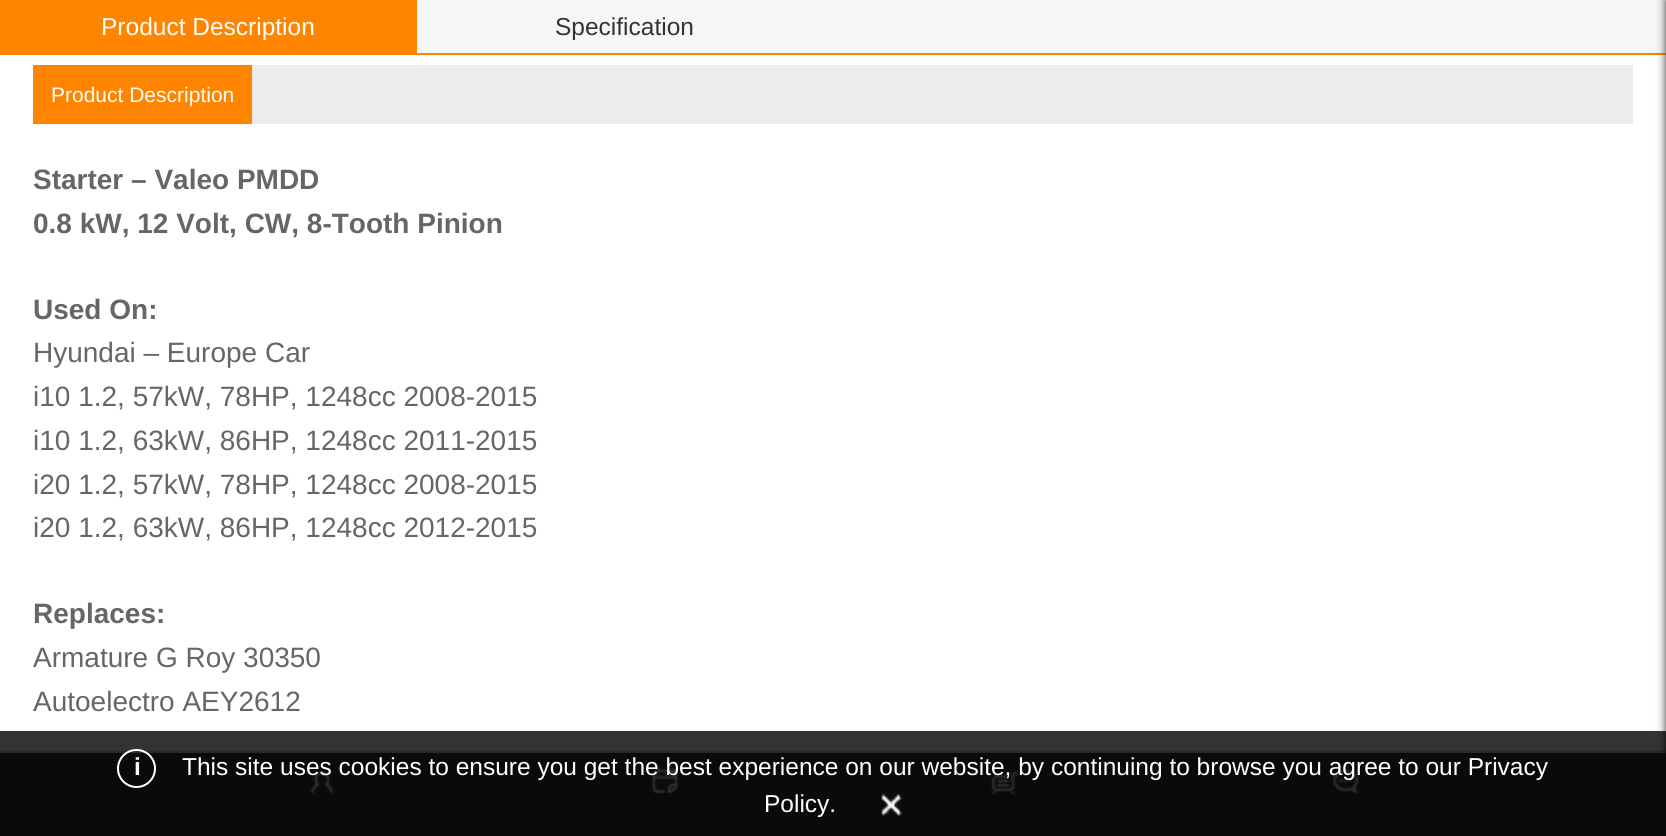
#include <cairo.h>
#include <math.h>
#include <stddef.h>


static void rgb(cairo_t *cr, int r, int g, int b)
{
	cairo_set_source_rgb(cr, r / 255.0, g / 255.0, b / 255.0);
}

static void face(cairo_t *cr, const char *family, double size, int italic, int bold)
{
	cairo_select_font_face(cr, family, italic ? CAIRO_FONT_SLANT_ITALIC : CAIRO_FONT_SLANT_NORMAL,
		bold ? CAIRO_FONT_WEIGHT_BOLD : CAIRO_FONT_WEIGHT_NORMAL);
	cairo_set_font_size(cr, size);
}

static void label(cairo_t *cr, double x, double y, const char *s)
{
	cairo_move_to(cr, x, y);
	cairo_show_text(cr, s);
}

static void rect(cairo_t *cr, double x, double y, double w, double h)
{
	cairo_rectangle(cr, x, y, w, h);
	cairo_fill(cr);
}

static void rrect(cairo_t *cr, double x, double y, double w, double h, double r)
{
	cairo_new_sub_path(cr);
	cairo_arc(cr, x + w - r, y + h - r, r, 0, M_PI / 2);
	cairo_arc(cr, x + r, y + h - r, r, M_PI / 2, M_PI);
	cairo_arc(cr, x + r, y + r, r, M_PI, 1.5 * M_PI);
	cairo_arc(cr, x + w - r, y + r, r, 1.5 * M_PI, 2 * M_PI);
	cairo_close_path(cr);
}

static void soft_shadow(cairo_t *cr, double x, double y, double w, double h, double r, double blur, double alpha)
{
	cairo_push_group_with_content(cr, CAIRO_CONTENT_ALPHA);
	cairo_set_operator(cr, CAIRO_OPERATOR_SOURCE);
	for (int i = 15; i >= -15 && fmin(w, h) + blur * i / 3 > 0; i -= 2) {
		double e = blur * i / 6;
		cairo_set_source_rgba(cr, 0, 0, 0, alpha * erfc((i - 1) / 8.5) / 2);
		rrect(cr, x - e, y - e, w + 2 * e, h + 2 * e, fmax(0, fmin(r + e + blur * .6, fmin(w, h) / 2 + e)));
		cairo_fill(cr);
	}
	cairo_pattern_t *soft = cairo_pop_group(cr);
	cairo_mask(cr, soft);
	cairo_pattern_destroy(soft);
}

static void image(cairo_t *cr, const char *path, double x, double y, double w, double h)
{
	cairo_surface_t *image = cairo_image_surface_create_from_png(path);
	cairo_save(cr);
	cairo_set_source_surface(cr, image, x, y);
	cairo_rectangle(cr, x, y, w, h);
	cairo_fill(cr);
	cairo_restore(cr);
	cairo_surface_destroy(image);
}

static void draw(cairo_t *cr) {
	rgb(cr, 255, 255, 255);
	cairo_paint(cr);
	rgb(cr, 246, 246, 246);
	rect(cr, 417, 0, 1249, 53);
	rgb(cr, 255, 132, 0);
	rect(cr, 0, 53, 1666, 2);
	rgb(cr, 204, 204, 204);
	rect(cr, 0, 751, 1666, 2);
	rgb(cr, 51, 51, 51);
	soft_shadow(cr, 1666, 0, 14, 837, 0, 4.5, 1);
	rgb(cr, 51, 51, 51);
	rect(cr, 0, 753, 1666, 83);
	image(cr, "image0.png", 310, 770, 24, 24);
	image(cr, "image1.png", 651, 767, 28, 27);
	image(cr, "image2.png", 991, 770, 27, 24);
	image(cr, "image3.png", 1332, 769, 27, 25);
	rgb(cr, 236, 236, 236);
	rect(cr, 252, 65, 1381, 59);
	rgb(cr, 255, 132, 0);
	rect(cr, 0, 0, 417, 53);
	face(cr, "Liberation Sans", 24.5, 0, 0);
	rgb(cr, 255, 255, 255);
	label(cr, 101, 35, "Product Description");
	rgb(cr, 51, 51, 51);
	label(cr, 555, 35, "Specification");
	rgb(cr, 255, 132, 0);
	rect(cr, 33, 65, 219, 59);
	face(cr, "Liberation Sans", 21, 0, 0);
	rgb(cr, 255, 255, 255);
	label(cr, 51, 102, "Product Description");
	face(cr, "Liberation Sans", 28, 0, 1);
	rgb(cr, 102, 102, 102);
	label(cr, 33, 189, "Starter – Valeo PMDD");
	label(cr, 33, 233, "0.8 kW, 12 Volt, CW, 8-Tooth Pinion");
	label(cr, 33, 319, "Used On:");
	face(cr, "Liberation Sans", 28, 0, 0);
	label(cr, 33, 362, "Hyundai – Europe Car");
	label(cr, 33, 406, "i10 1.2, 57kW, 78HP, 1248cc 2008-2015");
	label(cr, 33, 450, "i10 1.2, 63kW, 86HP, 1248cc 2011-2015");
	label(cr, 33, 494, "i20 1.2, 57kW, 78HP, 1248cc 2008-2015");
	label(cr, 33, 537, "i20 1.2, 63kW, 86HP, 1248cc 2012-2015");
	face(cr, "Liberation Sans", 28, 0, 1);
	label(cr, 33, 623, "Replaces:");
	face(cr, "Liberation Sans", 28, 0, 0);
	label(cr, 33, 667, "Armature G Roy 30350");
	label(cr, 33, 711, "Autoelectro AEY2612");
	cairo_set_source_rgba(cr, 0, 0, 0, 0.8);
	rect(cr, 0, 731, 1666, 105);
	cairo_new_path(cr);
	cairo_arc(cr, 136.5, 768.5, 18.5, 0, 2 * M_PI);
	rgb(cr, 255, 255, 255);
	cairo_stroke(cr);
	face(cr, "Liberation Sans", 24.5, 0, 1);
	label(cr, 134, 775, "i");
	face(cr, "Liberation Sans", 24.5, 0, 0);
	label(cr, 182, 775, "This site uses cookies to ensure you get the best experience on our website, by continuing to browse you agree to our Privacy");
	label(cr, 764, 812, "Policy.");
	image(cr, "image4.png", 881, 793, 21, 23);
}

int main(void) {
	cairo_surface_t *surface = cairo_image_surface_create(CAIRO_FORMAT_RGB24, 1666, 836);
	cairo_t *cr = cairo_create(surface);
	cairo_font_options_t *options = cairo_font_options_create();
	cairo_font_options_set_hint_metrics(options, CAIRO_HINT_METRICS_OFF);
	cairo_font_options_set_hint_style(options, CAIRO_HINT_STYLE_NONE);
	cairo_set_font_options(cr, options);
	cairo_set_miter_limit(cr, 4);
	draw(cr);
	cairo_surface_write_to_png(surface, "render.png");
	cairo_font_options_destroy(options);
	cairo_destroy(cr);
	cairo_surface_destroy(surface);
	return 0;
}
